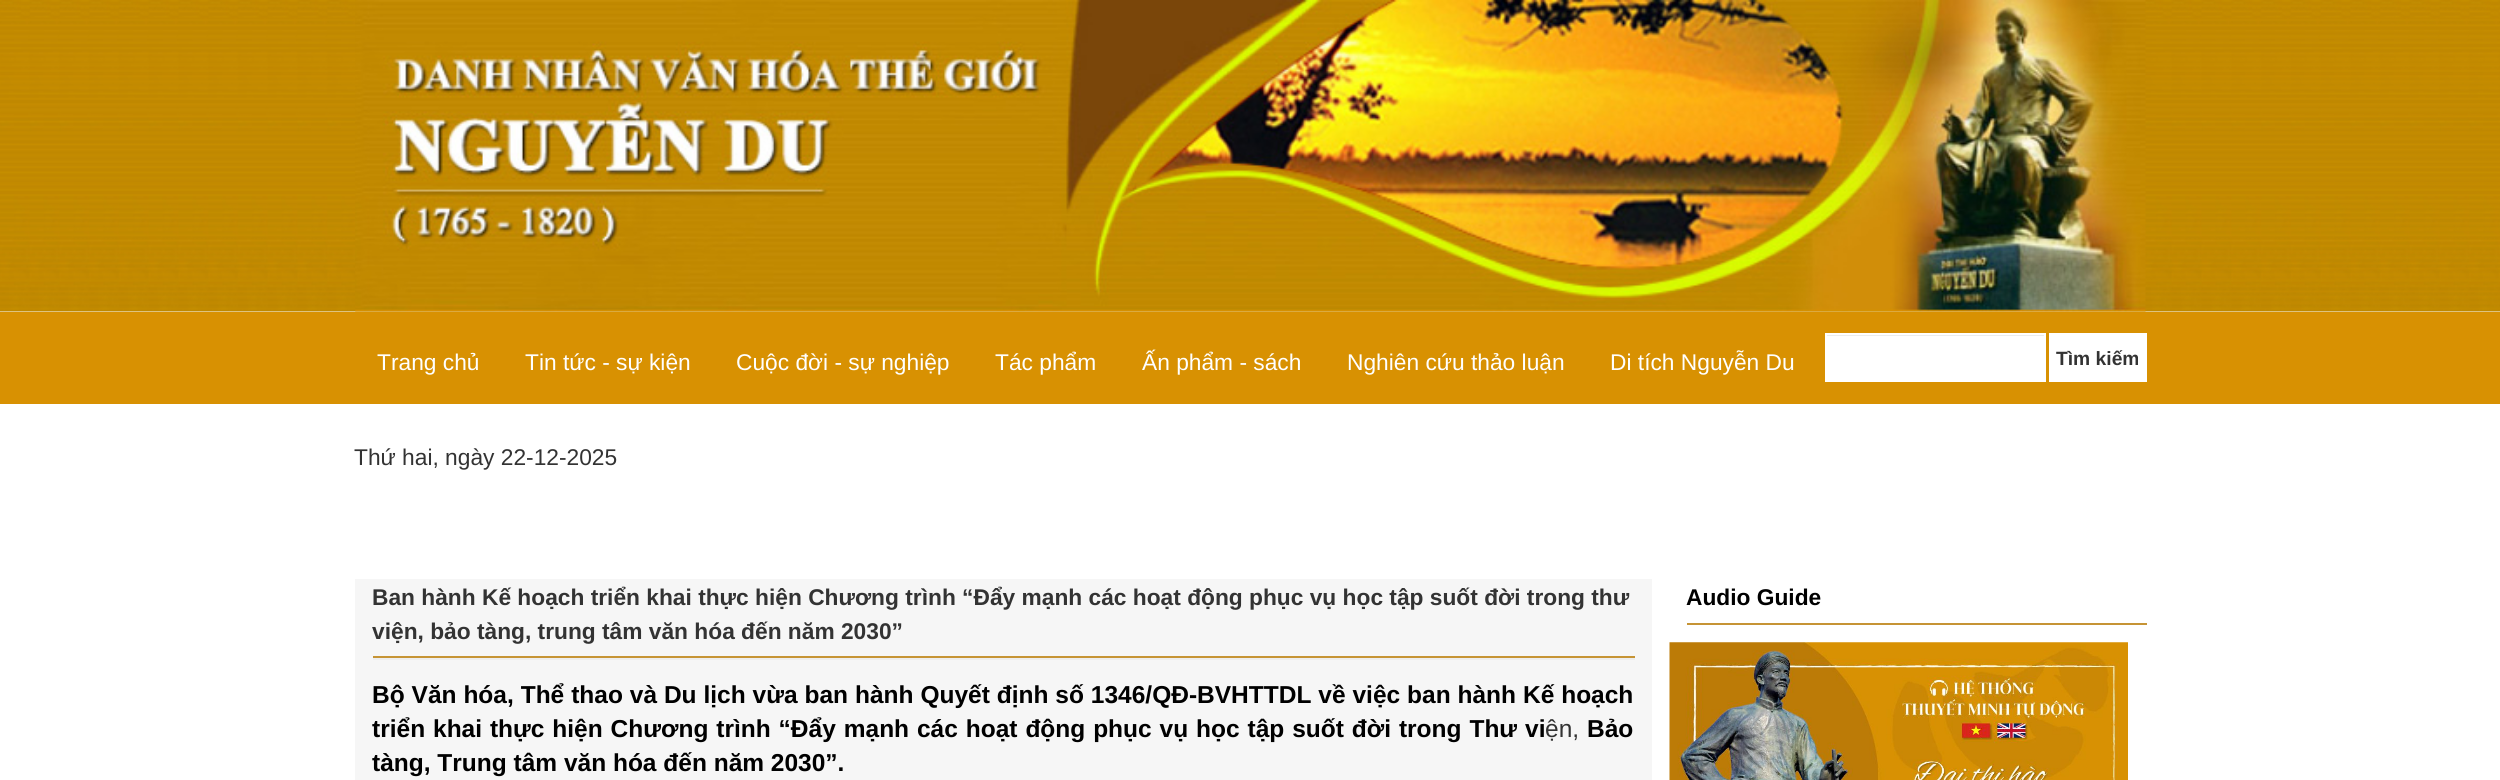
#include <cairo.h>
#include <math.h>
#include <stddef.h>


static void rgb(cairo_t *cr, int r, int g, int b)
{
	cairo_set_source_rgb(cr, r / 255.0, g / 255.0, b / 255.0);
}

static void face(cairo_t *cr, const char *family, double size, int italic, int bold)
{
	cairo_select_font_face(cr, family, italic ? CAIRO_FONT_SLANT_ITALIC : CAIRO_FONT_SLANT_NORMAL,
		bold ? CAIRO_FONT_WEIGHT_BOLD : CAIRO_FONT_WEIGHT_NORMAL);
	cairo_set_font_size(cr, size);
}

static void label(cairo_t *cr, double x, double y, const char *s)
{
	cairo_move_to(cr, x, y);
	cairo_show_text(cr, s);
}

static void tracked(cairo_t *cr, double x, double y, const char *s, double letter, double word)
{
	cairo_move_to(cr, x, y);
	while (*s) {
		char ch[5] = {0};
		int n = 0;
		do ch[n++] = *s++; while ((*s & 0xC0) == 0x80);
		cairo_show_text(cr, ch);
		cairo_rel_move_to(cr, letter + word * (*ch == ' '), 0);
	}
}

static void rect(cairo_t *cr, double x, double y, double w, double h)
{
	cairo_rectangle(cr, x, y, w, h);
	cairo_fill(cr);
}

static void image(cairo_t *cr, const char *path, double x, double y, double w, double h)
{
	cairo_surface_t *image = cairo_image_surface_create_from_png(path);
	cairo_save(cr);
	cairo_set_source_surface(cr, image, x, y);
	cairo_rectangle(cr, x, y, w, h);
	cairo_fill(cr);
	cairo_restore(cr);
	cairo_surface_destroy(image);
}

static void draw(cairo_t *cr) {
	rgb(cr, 255, 255, 255);
	cairo_paint(cr);
	image(cr, "image0.png", 0, 0, 2500, 312);
	image(cr, "image1.png", 355, 0, 1791, 312);
	rgb(cr, 216, 145, 2);
	rect(cr, 0, 312, 2500, 92);
	face(cr, "Liberation Sans", 22.75, 0, 0);
	rgb(cr, 255, 255, 255);
	label(cr, 377, 370, "Trang chủ");
	label(cr, 525, 370, "Tin tức - sự kiện");
	label(cr, 736, 370, "Cuộc đời - sự nghiệp");
	label(cr, 995, 370, "Tác phẩm");
	label(cr, 1142, 370, "Ấn phẩm - sách");
	label(cr, 1347, 370, "Nghiên cứu thảo luận");
	label(cr, 1610, 370, "Di tích Nguyễn Du");
	rect(cr, 1827, 336, 217, 44);
	rgb(cr, 236, 236, 236);
	rect(cr, 1827, 335, 217, 1);
	cairo_rectangle(cr, 1826, 334, 219, 47);
	rgb(cr, 255, 255, 255);
	cairo_stroke(cr);
	rect(cr, 2049, 333, 98, 49);
	face(cr, "Liberation Sans", 19.25, 0, 1);
	rgb(cr, 51, 51, 51);
	label(cr, 2056, 365, "Tìm kiếm");
	face(cr, "Liberation Sans", 22.75, 0, 0);
	label(cr, 354, 465, "Thứ hai, ngày 22-12-2025");
	rgb(cr, 246, 246, 246);
	rect(cr, 355, 579, 1297, 201);
	rgb(cr, 198, 148, 53);
	rect(cr, 373, 656, 1262, 2);
	face(cr, "Liberation Sans", 22.75, 0, 1);
	rgb(cr, 51, 51, 51);
	label(cr, 372, 605, "Ban hành Kế hoạch triển khai thực hiện Chương trình “Đẩy mạnh các hoạt động phục vụ học tập suốt đời trong thư");
	label(cr, 372, 639, "viện, bảo tàng, trung tâm văn hóa đến năm 2030”");
	rgb(cr, 238, 238, 238);
	rect(cr, 373, 658, 1262, 2);
	face(cr, "Liberation Sans", 24.5, 0, 1);
	rgb(cr, 0, 0, 0);
	tracked(cr, 372, 703, "Bộ Văn hóa, Thể thao và Du lịch vừa ban hành Quyết định số 1346/QĐ-BVHTTDL về việc ban hành Kế hoạch", 0, 0.1);
	tracked(cr, 372, 737, "triển khai thực hiện Chương trình “Đẩy mạnh các hoạt động phục vụ học tập suốt đời trong Thư vi", 0, 1.1);
	face(cr, "Liberation Sans", 24.5, 0, 0);
	rgb(cr, 51, 51, 51);
	label(cr, 1545, 737, "ện,");
	face(cr, "Liberation Sans", 24.5, 0, 1);
	rgb(cr, 0, 0, 0);
	label(cr, 1587, 737, "Bảo");
	label(cr, 372, 771, "tàng, Trung tâm văn hóa đến năm 2030”.");
	rgb(cr, 198, 148, 53);
	rect(cr, 1687, 623, 460, 2);
	face(cr, "Liberation Sans", 22.75, 0, 1);
	rgb(cr, 0, 0, 0);
	label(cr, 1686, 605, "Audio Guide");
	image(cr, "image2.png", 1669, 642, 459, 138);
}

int main(void) {
	cairo_surface_t *surface = cairo_image_surface_create(CAIRO_FORMAT_RGB24, 2500, 780);
	cairo_t *cr = cairo_create(surface);
	cairo_font_options_t *options = cairo_font_options_create();
	cairo_font_options_set_hint_metrics(options, CAIRO_HINT_METRICS_OFF);
	cairo_font_options_set_hint_style(options, CAIRO_HINT_STYLE_NONE);
	cairo_set_font_options(cr, options);
	cairo_set_miter_limit(cr, 4);
	draw(cr);
	cairo_surface_write_to_png(surface, "render.png");
	cairo_font_options_destroy(options);
	cairo_destroy(cr);
	cairo_surface_destroy(surface);
	return 0;
}
